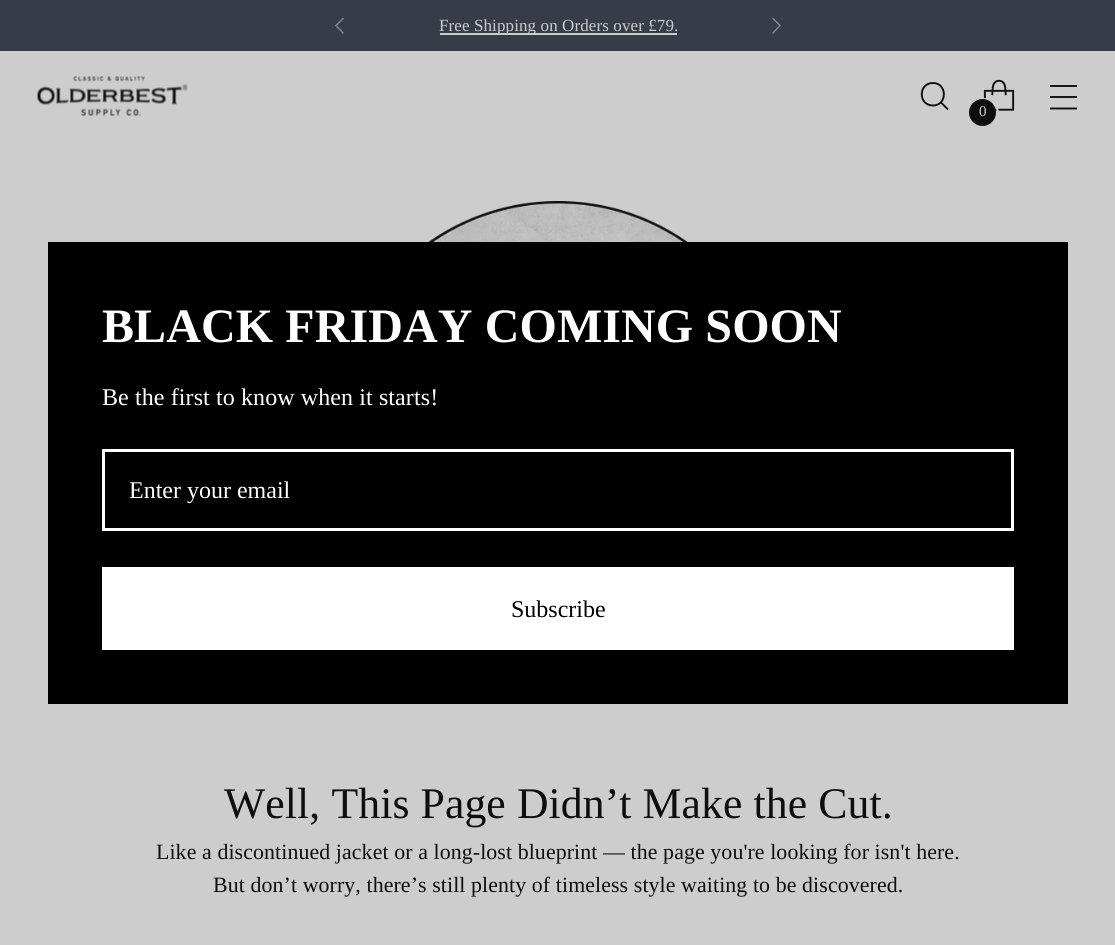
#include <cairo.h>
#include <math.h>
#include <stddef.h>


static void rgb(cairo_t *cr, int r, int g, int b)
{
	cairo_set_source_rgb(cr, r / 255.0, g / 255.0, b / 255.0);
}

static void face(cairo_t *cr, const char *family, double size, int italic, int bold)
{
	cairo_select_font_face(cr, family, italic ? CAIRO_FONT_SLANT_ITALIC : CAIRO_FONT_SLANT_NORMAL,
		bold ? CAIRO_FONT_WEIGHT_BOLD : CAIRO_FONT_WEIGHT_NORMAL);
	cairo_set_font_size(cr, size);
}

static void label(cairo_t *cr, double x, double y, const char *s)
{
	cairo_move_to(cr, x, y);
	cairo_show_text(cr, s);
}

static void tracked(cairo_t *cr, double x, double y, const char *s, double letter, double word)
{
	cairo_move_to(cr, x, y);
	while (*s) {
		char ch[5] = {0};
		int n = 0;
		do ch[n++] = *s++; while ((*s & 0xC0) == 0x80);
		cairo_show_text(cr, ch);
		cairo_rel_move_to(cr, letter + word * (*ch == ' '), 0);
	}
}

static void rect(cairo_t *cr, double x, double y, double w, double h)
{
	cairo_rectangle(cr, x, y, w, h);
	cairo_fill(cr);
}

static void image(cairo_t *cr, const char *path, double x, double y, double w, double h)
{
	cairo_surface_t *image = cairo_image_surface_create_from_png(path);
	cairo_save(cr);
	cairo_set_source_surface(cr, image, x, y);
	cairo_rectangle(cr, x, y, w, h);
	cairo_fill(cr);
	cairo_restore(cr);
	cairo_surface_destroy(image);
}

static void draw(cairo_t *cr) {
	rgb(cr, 205, 205, 205);
	cairo_paint(cr);
	rgb(cr, 55, 60, 73);
	rect(cr, 0, 0, 1115, 51);
	cairo_new_path(cr);
	cairo_move_to(cr, 343.5, 18);
	cairo_line_to(cr, 336, 25.5);
	cairo_line_to(cr, 343.5, 33.5);
	rgb(cr, 130, 133, 139);
	cairo_set_line_width(cr, 1.5);
	cairo_stroke(cr);
	cairo_new_path(cr);
	cairo_move_to(cr, 772.5, 33.5);
	cairo_line_to(cr, 780, 25.5);
	cairo_line_to(cr, 772.5, 18);
	cairo_stroke(cr);
	rgb(cr, 205, 205, 205);
	rect(cr, 440, 33, 237, 2);
	face(cr, "Liberation Serif", 17, 0, 0);
	tracked(cr, 439, 31, "Free Shipping on Orders over £79.", 0.1, 0);
	image(cr, "image0.png", 37, 76, 151, 40);
	cairo_new_path(cr);
	cairo_move_to(cr, 933, 105.5);
	cairo_curve_to(cr, 947.5, 105.5, 947.5, 83, 933, 83);
	cairo_curve_to(cr, 918, 83, 918, 105.5, 933, 105.5);
	cairo_close_path(cr);
	rgb(cr, 14, 14, 14);
	cairo_set_line_width(cr, 1.9);
	cairo_set_line_cap(cr, CAIRO_LINE_CAP_ROUND);
	cairo_stroke(cr);
	cairo_new_path(cr);
	cairo_move_to(cr, 941, 102.5);
	cairo_line_to(cr, 948, 109.5);
	cairo_set_line_cap(cr, CAIRO_LINE_CAP_BUTT);
	cairo_stroke(cr);
	cairo_new_path(cr);
	cairo_move_to(cr, 1050, 97);
	cairo_line_to(cr, 1077, 97);
	cairo_move_to(cr, 1050, 86);
	cairo_line_to(cr, 1077, 86);
	cairo_move_to(cr, 1050, 108.5);
	cairo_line_to(cr, 1077, 108.5);
	cairo_stroke(cr);
	image(cr, "image1.png", 983, 79, 32, 32);
	cairo_arc(cr, 983.5, 113.5, 14.5, 0, 2 * M_PI);
	rgb(cr, 205, 205, 205);
	cairo_set_line_width(cr, 2);
	cairo_stroke(cr);
	rgb(cr, 14, 14, 14);
	cairo_arc(cr, 982.5, 112.5, 13.5, 0, 2 * M_PI);
	cairo_fill(cr);
	face(cr, "Liberation Serif", 15, 0, 0);
	rgb(cr, 205, 205, 205);
	tracked(cr, 979, 116, "0", 0.1, 0);
	image(cr, "image2.png", 428, 201, 260, 41);
	face(cr, "Liberation Serif", 43.7, 0, 0);
	rgb(cr, 14, 14, 14);
	tracked(cr, 224, 818, "Well, This Page Didn’t Make the Cut.", 0.1, 0);
	face(cr, "Liberation Serif", 21.85, 0, 0);
	tracked(cr, 156, 859, "Like a discontinued jacket or a long-lost blueprint — the page you're looking for isn't here.", 0.1, 0);
	tracked(cr, 213, 892, "But don’t worry, there’s still plenty of timeless style waiting to be discovered.", 0.1, 0);
	rgb(cr, 0, 0, 0);
	rect(cr, 48, 242, 1020, 462);
	face(cr, "Liberation Serif", 48, 0, 1);
	rgb(cr, 255, 255, 255);
	tracked(cr, 102, 342, "BLACK FRIDAY COMING SOON", 0.1, 0);
	face(cr, "Liberation Serif", 24, 0, 0);
	tracked(cr, 102, 405, "Be the first to know when it starts!", 0.1, 0);
	cairo_rectangle(cr, 103.5, 450.5, 909, 79);
	cairo_set_line_width(cr, 3);
	cairo_stroke(cr);
	label(cr, 129, 498, "Enter your email");
	rect(cr, 102, 567, 912, 83);
	rgb(cr, 0, 0, 0);
	label(cr, 511, 617, "Subscribe");
}

int main(void) {
	cairo_surface_t *surface = cairo_image_surface_create(CAIRO_FORMAT_RGB24, 1115, 945);
	cairo_t *cr = cairo_create(surface);
	cairo_font_options_t *options = cairo_font_options_create();
	cairo_font_options_set_hint_metrics(options, CAIRO_HINT_METRICS_OFF);
	cairo_font_options_set_hint_style(options, CAIRO_HINT_STYLE_NONE);
	cairo_set_font_options(cr, options);
	cairo_set_miter_limit(cr, 4);
	draw(cr);
	cairo_surface_write_to_png(surface, "render.png");
	cairo_font_options_destroy(options);
	cairo_destroy(cr);
	cairo_surface_destroy(surface);
	return 0;
}
